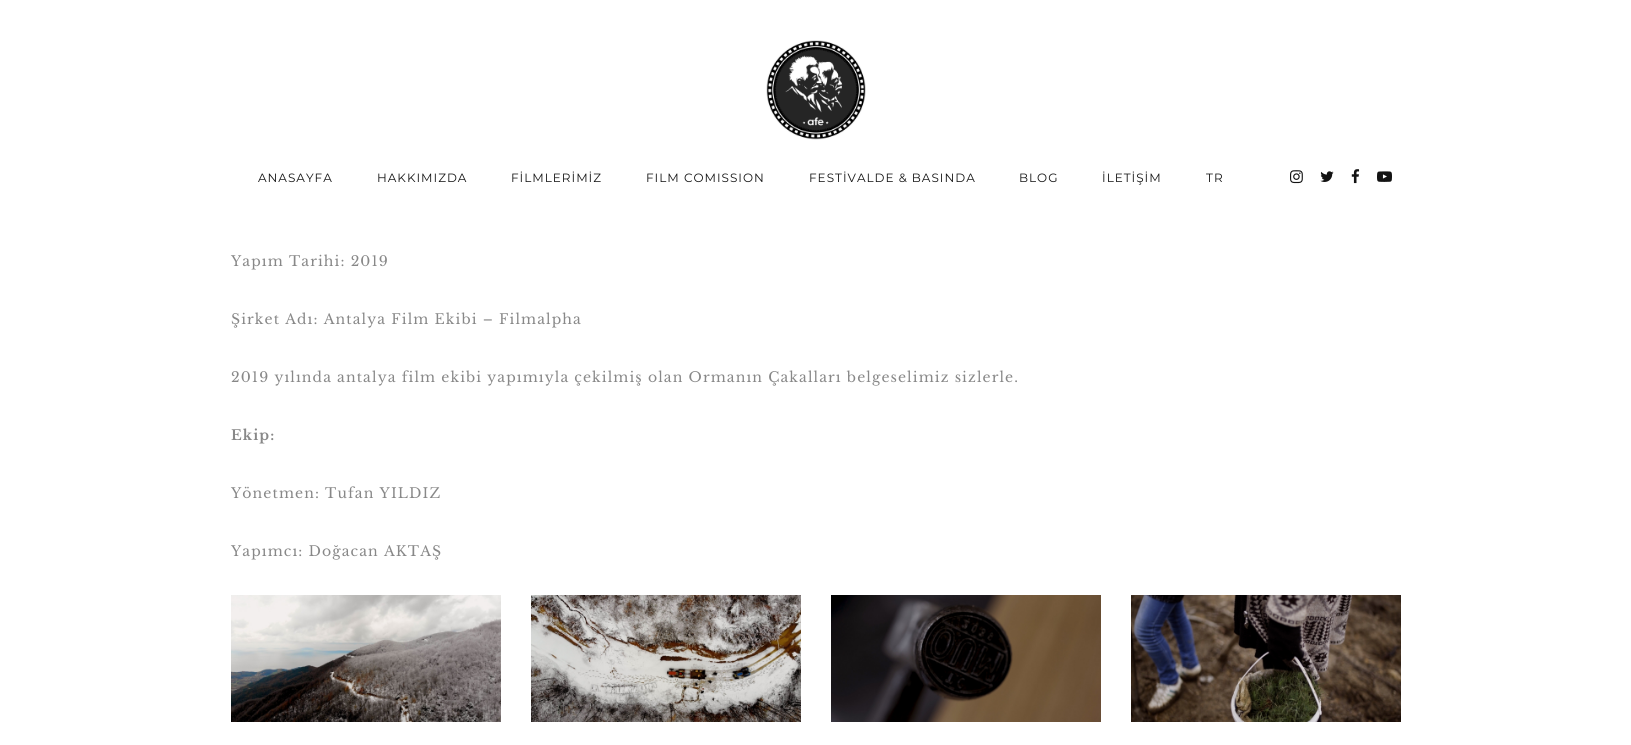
#include <cairo.h>
#include <math.h>
#include <stddef.h>


static void rgb(cairo_t *cr, int r, int g, int b)
{
	cairo_set_source_rgb(cr, r / 255.0, g / 255.0, b / 255.0);
}

static void face(cairo_t *cr, const char *family, double size, int italic, int bold)
{
	cairo_select_font_face(cr, family, italic ? CAIRO_FONT_SLANT_ITALIC : CAIRO_FONT_SLANT_NORMAL,
		bold ? CAIRO_FONT_WEIGHT_BOLD : CAIRO_FONT_WEIGHT_NORMAL);
	cairo_set_font_size(cr, size);
}

static void tracked(cairo_t *cr, double x, double y, const char *s, double letter, double word)
{
	cairo_move_to(cr, x, y);
	while (*s) {
		char ch[5] = {0};
		int n = 0;
		do ch[n++] = *s++; while ((*s & 0xC0) == 0x80);
		cairo_show_text(cr, ch);
		cairo_rel_move_to(cr, letter + word * (*ch == ' '), 0);
	}
}

static void image(cairo_t *cr, const char *path, double x, double y, double w, double h)
{
	cairo_surface_t *image = cairo_image_surface_create_from_png(path);
	cairo_save(cr);
	cairo_set_source_surface(cr, image, x, y);
	cairo_rectangle(cr, x, y, w, h);
	cairo_fill(cr);
	cairo_restore(cr);
	cairo_surface_destroy(image);
}

static void draw(cairo_t *cr) {
	rgb(cr, 255, 255, 255);
	cairo_paint(cr);
	image(cr, "image0.png", 766, 40, 100, 100);
	face(cr, "Montserrat", 12, 0, 0);
	rgb(cr, 19, 19, 19);
	tracked(cr, 258, 182, "ANASAYFA", 1, 0);
	tracked(cr, 377, 182, "HAKKIMIZDA", 1, 0);
	tracked(cr, 511, 182, "FİLMLERİMİZ", 1, 0);
	tracked(cr, 646, 182, "FILM COMISSION", 1, 0);
	tracked(cr, 809, 182, "FESTİVALDE & BASINDA", 1, 0);
	tracked(cr, 1019, 182, "BLOG", 1, 0);
	tracked(cr, 1102, 182, "İLETİŞİM", 1, 0);
	tracked(cr, 1206, 182, "TR", 1, 0);
	image(cr, "image1.png", 1290, 170, 13, 14);
	image(cr, "image2.png", 1320, 171, 14, 11);
	image(cr, "image3.png", 1351, 169, 9, 15);
	image(cr, "image4.png", 1377, 171, 15, 11);
	face(cr, "Libre Baskerville", 14, 0, 0);
	rgb(cr, 136, 136, 136);
	tracked(cr, 231, 266, "Yapım Tarihi: 2019", 1.1, 0);
	tracked(cr, 231, 324, "Şirket Adı: Antalya Film Ekibi – Filmalpha", 1.1, 0);
	tracked(cr, 231, 382, "2019 yılında antalya film ekibi yapımıyla çekilmiş olan Ormanın Çakalları belgeselimiz sizlerle.", 1.1, 0);
	face(cr, "Libre Baskerville", 14, 0, 1);
	tracked(cr, 231, 440, "Ekip:", 1.1, 0);
	face(cr, "Libre Baskerville", 14, 0, 0);
	tracked(cr, 231, 498, "Yönetmen: Tufan YILDIZ", 1.1, 0);
	tracked(cr, 231, 556, "Yapımcı: Doğacan AKTAŞ", 1.1, 0);
	image(cr, "image5.png", 231, 595, 270, 127);
	image(cr, "image6.png", 531, 595, 270, 127);
	image(cr, "image7.png", 831, 595, 270, 127);
	image(cr, "image8.png", 1131, 595, 270, 127);
}

int main(void) {
	cairo_surface_t *surface = cairo_image_surface_create(CAIRO_FORMAT_RGB24, 1631, 745);
	cairo_t *cr = cairo_create(surface);
	cairo_font_options_t *options = cairo_font_options_create();
	cairo_font_options_set_hint_metrics(options, CAIRO_HINT_METRICS_OFF);
	cairo_font_options_set_hint_style(options, CAIRO_HINT_STYLE_NONE);
	cairo_set_font_options(cr, options);
	cairo_set_miter_limit(cr, 4);
	draw(cr);
	cairo_surface_write_to_png(surface, "render.png");
	cairo_font_options_destroy(options);
	cairo_destroy(cr);
	cairo_surface_destroy(surface);
	return 0;
}
